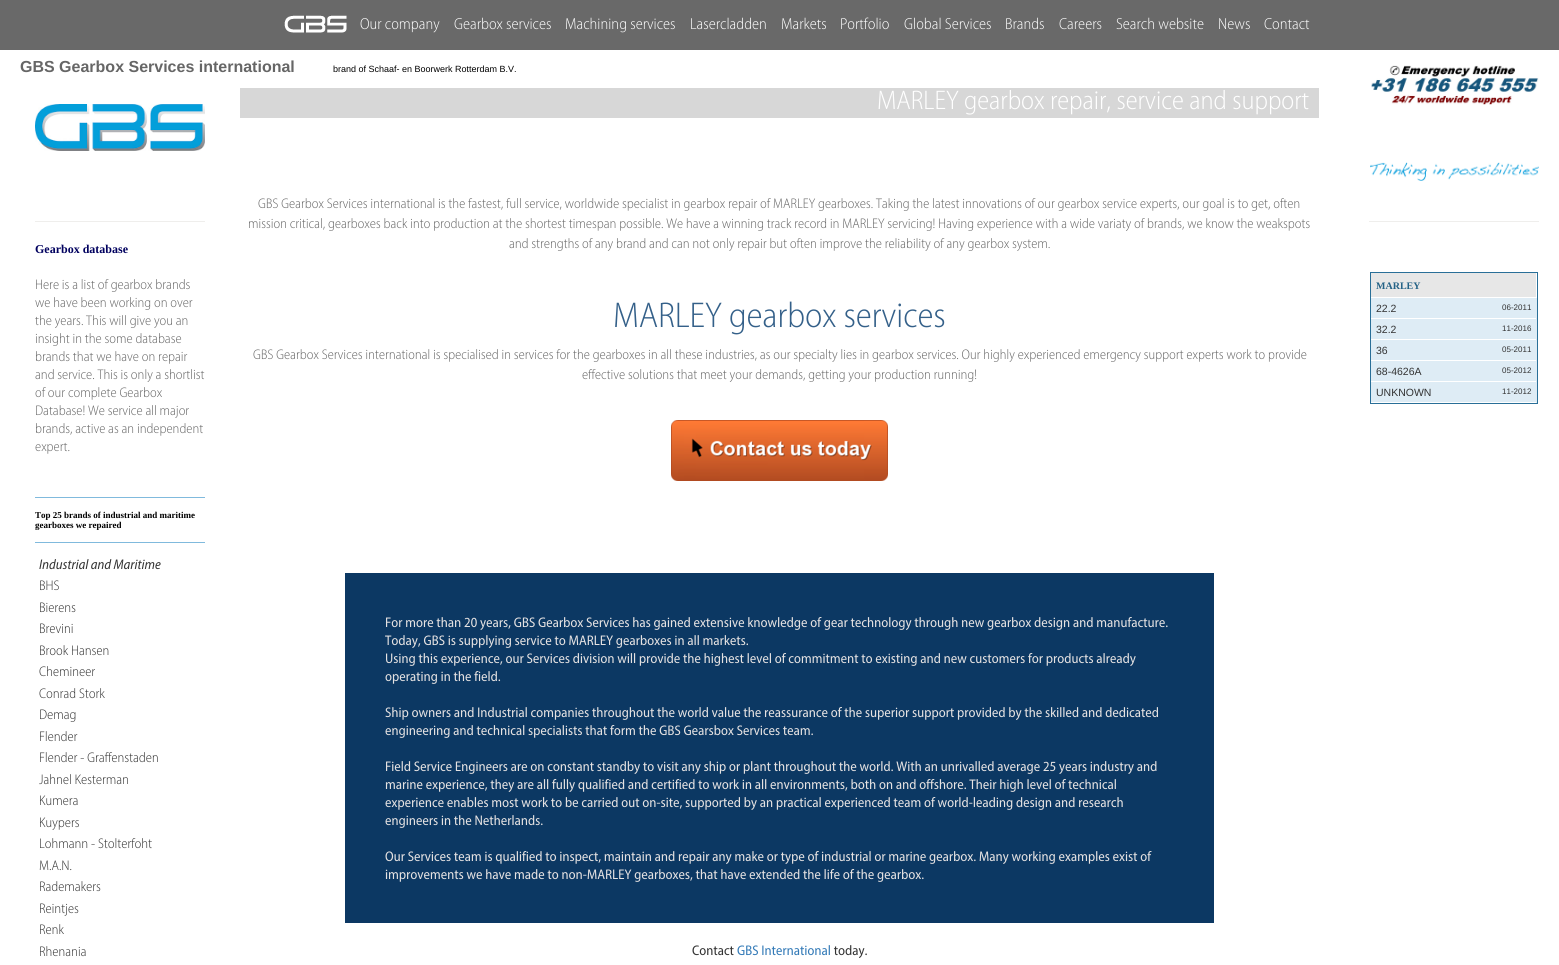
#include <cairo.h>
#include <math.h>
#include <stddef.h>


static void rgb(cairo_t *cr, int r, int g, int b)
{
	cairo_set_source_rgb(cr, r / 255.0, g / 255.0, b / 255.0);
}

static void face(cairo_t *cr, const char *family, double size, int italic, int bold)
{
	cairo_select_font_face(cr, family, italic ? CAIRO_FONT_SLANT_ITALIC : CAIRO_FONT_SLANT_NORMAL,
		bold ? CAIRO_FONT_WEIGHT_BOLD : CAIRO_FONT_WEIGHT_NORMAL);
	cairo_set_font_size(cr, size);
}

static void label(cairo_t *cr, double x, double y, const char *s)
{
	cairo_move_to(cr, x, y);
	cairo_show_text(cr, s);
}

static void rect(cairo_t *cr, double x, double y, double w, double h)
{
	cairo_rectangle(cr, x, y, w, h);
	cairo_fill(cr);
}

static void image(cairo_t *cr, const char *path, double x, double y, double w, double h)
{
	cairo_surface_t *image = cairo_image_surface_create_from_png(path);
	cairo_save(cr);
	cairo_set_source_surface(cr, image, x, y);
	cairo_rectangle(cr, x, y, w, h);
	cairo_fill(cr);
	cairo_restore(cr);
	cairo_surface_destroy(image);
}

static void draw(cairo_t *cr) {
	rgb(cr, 255, 255, 255);
	cairo_paint(cr);
	rgb(cr, 105, 105, 105);
	rect(cr, 0, 0, 1559, 50);
	image(cr, "image0.png", 284, 15, 63, 18);
	face(cr, "Myriad Light", 16, 0, 0);
	rgb(cr, 255, 255, 255);
	label(cr, 360, 29, "Our company");
	label(cr, 454, 29, "Gearbox services");
	label(cr, 565, 29, "Machining services");
	label(cr, 690, 29, "Lasercladden");
	label(cr, 781, 29, "Markets");
	label(cr, 840, 29, "Portfolio");
	label(cr, 904, 29, "Global Services");
	label(cr, 1005, 29, "Brands");
	label(cr, 1059, 29, "Careers");
	label(cr, 1116, 29, "Search website");
	label(cr, 1218, 29, "News");
	label(cr, 1264, 29, "Contact");
	face(cr, "Liberation Sans", 16, 0, 1);
	rgb(cr, 102, 102, 102);
	label(cr, 20, 72, "GBS Gearbox Services international");
	face(cr, "Liberation Sans", 9, 0, 0);
	rgb(cr, 0, 0, 0);
	label(cr, 333, 72, "brand of Schaaf- en Boorwerk Rotterdam B.V.");
	image(cr, "image1.png", 1371, 65, 168, 40);
	rgb(cr, 215, 215, 215);
	rect(cr, 240, 88, 1079, 30);
	face(cr, "Myriad Light", 27, 0, 0);
	rgb(cr, 255, 255, 255);
	label(cr, 877, 109, "MARLEY gearbox repair, service and support");
	image(cr, "image2.png", 258, 198, 1042, 13);
	image(cr, "image3.png", 249, 218, 1061, 13);
	image(cr, "image4.png", 509, 238, 541, 13);
	image(cr, "image5.png", 615, 301, 330, 34);
	image(cr, "image6.png", 253, 349, 1054, 13);
	image(cr, "image7.png", 582, 369, 395, 13);
	image(cr, "image8.png", 671, 420, 217, 61);
	rgb(cr, 12, 56, 99);
	rect(cr, 345, 573, 869, 350);
	image(cr, "image9.png", 386, 617, 782, 13);
	image(cr, "image10.png", 385, 635, 363, 13);
	image(cr, "image11.png", 386, 653, 750, 13);
	image(cr, "image12.png", 385, 671, 116, 13);
	image(cr, "image13.png", 385, 707, 774, 13);
	image(cr, "image14.png", 385, 725, 428, 13);
	image(cr, "image15.png", 386, 761, 771, 13);
	image(cr, "image16.png", 385, 779, 731, 13);
	image(cr, "image17.png", 385, 797, 738, 13);
	image(cr, "image18.png", 385, 815, 158, 13);
	image(cr, "image19.png", 385, 851, 767, 13);
	image(cr, "image20.png", 385, 869, 539, 13);
	image(cr, "image21.png", 692, 945, 42, 11);
	image(cr, "image22.png", 737, 945, 93, 11);
	image(cr, "image23.png", 833, 945, 34, 13);
	image(cr, "image24.png", 35, 104, 170, 47);
	rgb(cr, 239, 238, 236);
	rect(cr, 35, 221, 170, 1);
	face(cr, "Liberation Serif", 12, 0, 1);
	rgb(cr, 0, 0, 94);
	label(cr, 35, 253, "Gearbox database");
	face(cr, "Myriad Light", 14, 0, 0);
	rgb(cr, 102, 102, 102);
	label(cr, 35, 289, "Here is a list of gearbox brands");
	label(cr, 35, 307, "we have been working on over");
	label(cr, 35, 325, "the years. This will give you an");
	label(cr, 35, 343, "insight in the some database");
	label(cr, 35, 361, "brands that we have on repair");
	label(cr, 35, 379, "and service. This is only a shortlist");
	label(cr, 35, 397, "of our complete Gearbox");
	label(cr, 35, 415, "Database! We service all major");
	label(cr, 35, 433, "brands, active as an independent");
	label(cr, 35, 451, "expert.");
	rgb(cr, 128, 186, 221);
	rect(cr, 35, 497, 170, 1);
	rect(cr, 35, 542, 170, 1);
	face(cr, "Liberation Serif", 9, 0, 1);
	rgb(cr, 0, 0, 0);
	label(cr, 35, 518, "Top 25 brands of industrial and maritime");
	label(cr, 35, 528, "gearboxes we repaired");
	image(cr, "image25.png", 39, 559, 122, 11);
	image(cr, "image26.png", 40, 580, 19, 11);
	image(cr, "image27.png", 40, 602, 36, 11);
	image(cr, "image28.png", 40, 623, 33, 11);
	image(cr, "image29.png", 40, 645, 69, 11);
	image(cr, "image30.png", 39, 666, 56, 11);
	image(cr, "image31.png", 39, 688, 66, 11);
	image(cr, "image32.png", 40, 709, 36, 13);
	image(cr, "image33.png", 40, 731, 38, 11);
	image(cr, "image34.png", 40, 752, 118, 11);
	image(cr, "image35.png", 39, 774, 89, 11);
	image(cr, "image36.png", 40, 795, 38, 11);
	image(cr, "image37.png", 40, 817, 39, 13);
	image(cr, "image38.png", 40, 838, 112, 11);
	image(cr, "image39.png", 39, 860, 33, 11);
	image(cr, "image40.png", 40, 881, 61, 11);
	image(cr, "image41.png", 40, 903, 39, 13);
	image(cr, "image42.png", 40, 924, 24, 11);
	image(cr, "image43.png", 40, 946, 46, 11);
	image(cr, "image44.png", 1370, 162, 169, 19);
	rgb(cr, 239, 238, 236);
	rect(cr, 1369, 221, 170, 1);
	cairo_rectangle(cr, 1370.5, 272.5, 167, 131);
	rgb(cr, 41, 111, 152);
	cairo_set_line_width(cr, 1);
	cairo_stroke(cr);
	rgb(cr, 231, 231, 231);
	rect(cr, 1371, 273, 165, 24);
	face(cr, "Liberation Serif", 10, 0, 1);
	rgb(cr, 36, 98, 134);
	label(cr, 1376, 289, "MARLEY");
	rgb(cr, 222, 236, 245);
	rect(cr, 1371, 298, 166, 105);
	rgb(cr, 255, 255, 255);
	rect(cr, 1371, 318, 165, 1);
	face(cr, "Liberation Sans", 10.5, 0, 0);
	rgb(cr, 51, 51, 51);
	label(cr, 1376, 312, "22.2");
	face(cr, "Liberation Sans", 8, 0, 0);
	label(cr, 1502, 310, "06-2011");
	rgb(cr, 255, 255, 255);
	rect(cr, 1371, 339, 165, 1);
	face(cr, "Liberation Sans", 10.5, 0, 0);
	rgb(cr, 51, 51, 51);
	label(cr, 1376, 333, "32.2");
	face(cr, "Liberation Sans", 8, 0, 0);
	label(cr, 1502, 331, "11-2016");
	rgb(cr, 255, 255, 255);
	rect(cr, 1371, 360, 165, 1);
	face(cr, "Liberation Sans", 10.5, 0, 0);
	rgb(cr, 51, 51, 51);
	label(cr, 1376, 354, "36");
	face(cr, "Liberation Sans", 8, 0, 0);
	label(cr, 1502, 352, "05-2011");
	rgb(cr, 255, 255, 255);
	rect(cr, 1371, 381, 165, 1);
	face(cr, "Liberation Sans", 10.5, 0, 0);
	rgb(cr, 51, 51, 51);
	label(cr, 1376, 375, "68-4626A");
	face(cr, "Liberation Sans", 8, 0, 0);
	label(cr, 1502, 373, "05-2012");
	rgb(cr, 255, 255, 255);
	rect(cr, 1371, 402, 165, 1);
	face(cr, "Liberation Sans", 10.5, 0, 0);
	rgb(cr, 51, 51, 51);
	label(cr, 1376, 396, "UNKNOWN");
	face(cr, "Liberation Sans", 8, 0, 0);
	label(cr, 1502, 394, "11-2012");
}

int main(void) {
	cairo_surface_t *surface = cairo_image_surface_create(CAIRO_FORMAT_RGB24, 1559, 965);
	cairo_t *cr = cairo_create(surface);
	cairo_font_options_t *options = cairo_font_options_create();
	cairo_font_options_set_hint_metrics(options, CAIRO_HINT_METRICS_OFF);
	cairo_font_options_set_hint_style(options, CAIRO_HINT_STYLE_NONE);
	cairo_set_font_options(cr, options);
	cairo_set_miter_limit(cr, 4);
	draw(cr);
	cairo_surface_write_to_png(surface, "render.png");
	cairo_font_options_destroy(options);
	cairo_destroy(cr);
	cairo_surface_destroy(surface);
	return 0;
}
